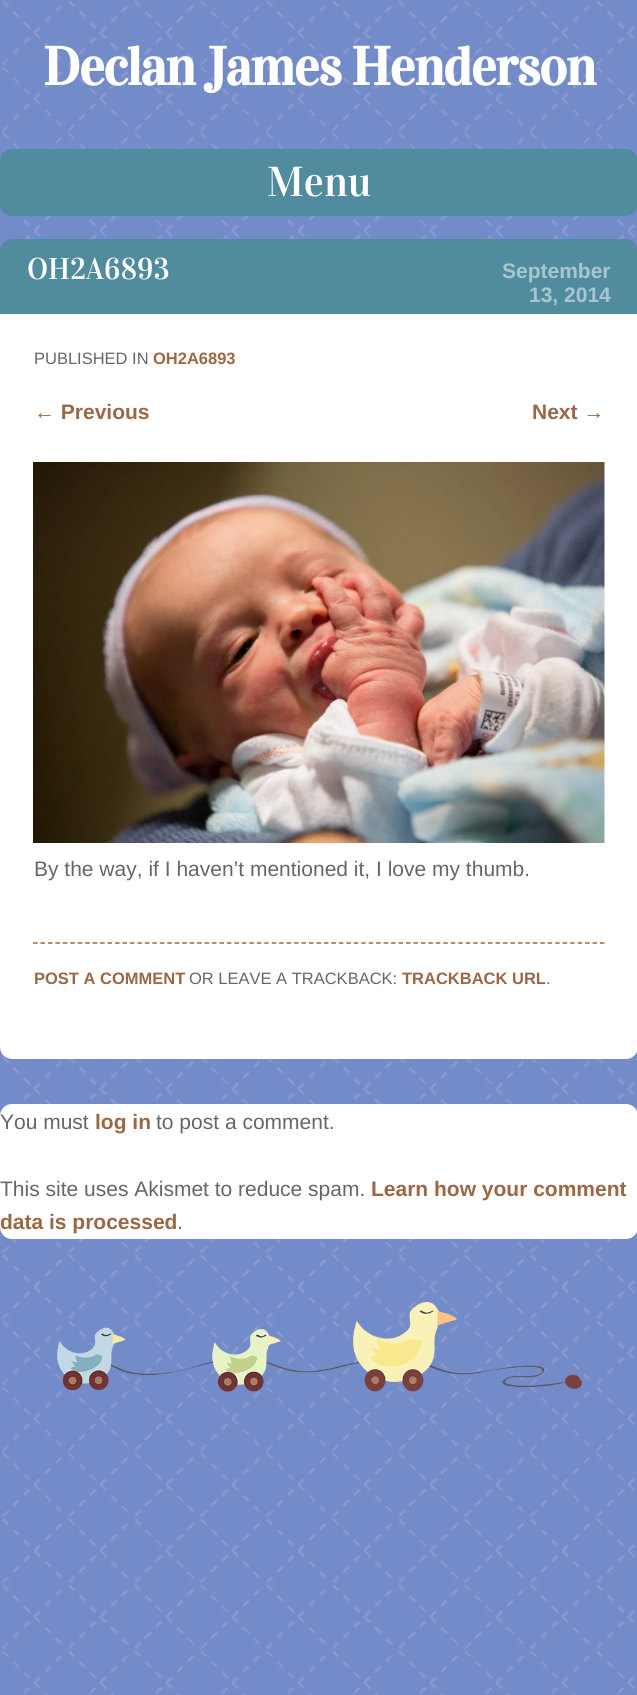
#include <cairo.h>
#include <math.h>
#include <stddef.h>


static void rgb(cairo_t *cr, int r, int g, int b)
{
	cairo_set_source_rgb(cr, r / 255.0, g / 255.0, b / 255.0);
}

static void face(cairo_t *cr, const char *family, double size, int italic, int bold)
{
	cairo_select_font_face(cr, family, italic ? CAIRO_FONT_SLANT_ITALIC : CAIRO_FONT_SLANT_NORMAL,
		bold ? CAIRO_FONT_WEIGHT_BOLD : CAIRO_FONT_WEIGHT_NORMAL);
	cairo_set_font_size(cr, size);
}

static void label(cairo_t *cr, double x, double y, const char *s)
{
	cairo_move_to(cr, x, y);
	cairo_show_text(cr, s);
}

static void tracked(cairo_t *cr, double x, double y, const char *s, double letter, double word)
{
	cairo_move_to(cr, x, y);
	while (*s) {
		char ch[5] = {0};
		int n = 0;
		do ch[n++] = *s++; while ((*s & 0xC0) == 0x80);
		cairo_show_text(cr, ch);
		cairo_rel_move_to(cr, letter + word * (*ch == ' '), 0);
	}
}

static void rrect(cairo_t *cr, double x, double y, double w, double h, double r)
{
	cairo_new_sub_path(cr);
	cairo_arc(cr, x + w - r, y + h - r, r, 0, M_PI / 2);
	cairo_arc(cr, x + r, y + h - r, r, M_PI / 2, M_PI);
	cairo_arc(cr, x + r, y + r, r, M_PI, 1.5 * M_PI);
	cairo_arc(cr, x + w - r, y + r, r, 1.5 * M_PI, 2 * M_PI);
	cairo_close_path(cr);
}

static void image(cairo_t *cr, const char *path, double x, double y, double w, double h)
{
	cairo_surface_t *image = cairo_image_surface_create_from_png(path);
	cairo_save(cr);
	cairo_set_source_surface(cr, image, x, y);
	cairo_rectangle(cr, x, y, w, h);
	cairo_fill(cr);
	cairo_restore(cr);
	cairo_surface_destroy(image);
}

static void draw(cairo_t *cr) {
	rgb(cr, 116, 139, 201);
	cairo_paint(cr);
	image(cr, "image0.png", 2, 0, 633, 1695);
	face(cr, "Vidaloka", 54, 0, 1);
	rgb(cr, 255, 255, 255);
	tracked(cr, 43, 85, "Declan James Henderson", -1.5, 0);
	rgb(cr, 81, 140, 158);
	rrect(cr, 0, 149, 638, 67, 12);
	cairo_fill(cr);
	face(cr, "Vidaloka", 42, 0, 0);
	rgb(cr, 255, 255, 255);
	label(cr, 267, 196, "Menu");
	rgb(cr, 81, 140, 158);
	cairo_new_path(cr);
	cairo_move_to(cr, 12, 239);
	cairo_line_to(cr, 626, 239);
	cairo_curve_to(cr, 632.5, 239, 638, 244.5, 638, 251);
	cairo_line_to(cr, 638, 318);
	cairo_line_to(cr, 0, 318);
	cairo_line_to(cr, 0, 251);
	cairo_curve_to(cr, 0, 244.5, 5.5, 239, 12, 239);
	cairo_close_path(cr);
	cairo_fill(cr);
	face(cr, "Vidaloka", 30, 0, 0);
	rgb(cr, 255, 255, 255);
	label(cr, 27, 279, "OH2A6893");
	face(cr, "Liberation Sans", 21, 0, 1);
	rgb(cr, 168, 198, 207);
	label(cr, 502, 278, "September");
	label(cr, 529, 302, "13, 2014");
	rgb(cr, 255, 255, 255);
	cairo_new_path(cr);
	cairo_move_to(cr, 0, 314);
	cairo_line_to(cr, 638, 314);
	cairo_line_to(cr, 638, 1047);
	cairo_curve_to(cr, 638, 1053.5, 632.5, 1059, 626, 1059);
	cairo_line_to(cr, 12, 1059);
	cairo_curve_to(cr, 5.5, 1059, 0, 1053.5, 0, 1047);
	cairo_close_path(cr);
	cairo_fill(cr);
	face(cr, "Liberation Sans", 16.5, 0, 0);
	rgb(cr, 102, 102, 102);
	label(cr, 34, 364, "PUBLISHED IN");
	face(cr, "Liberation Sans", 16.5, 0, 1);
	rgb(cr, 155, 103, 69);
	label(cr, 153, 364, "OH2A6893");
	face(cr, "Liberation Sans", 21, 0, 1);
	label(cr, 34, 419, "← Previous");
	label(cr, 532, 419, "Next →");
	cairo_new_path(cr);
	cairo_move_to(cr, 33, 943);
	cairo_line_to(cr, 604.5, 943);
	cairo_set_line_width(cr, 1.5);
	cairo_set_dash(cr, (double[]){4.5, 2.96}, 2, 0);
	cairo_stroke(cr);
	image(cr, "image1.png", 33, 462, 572, 381);
	face(cr, "Liberation Sans", 21, 0, 0);
	rgb(cr, 102, 102, 102);
	label(cr, 34, 876, "By the way, if I haven’t mentioned it, I love my thumb.");
	face(cr, "Liberation Sans", 16.5, 0, 1);
	rgb(cr, 155, 103, 69);
	label(cr, 34, 984, "POST A COMMENT");
	face(cr, "Liberation Sans", 16.5, 0, 0);
	rgb(cr, 102, 102, 102);
	label(cr, 189, 984, "OR LEAVE A TRACKBACK:");
	face(cr, "Liberation Sans", 16.5, 0, 1);
	rgb(cr, 155, 103, 69);
	label(cr, 402, 984, "TRACKBACK URL");
	face(cr, "Liberation Sans", 16.5, 0, 0);
	rgb(cr, 102, 102, 102);
	label(cr, 546, 984, ".");
	rgb(cr, 255, 255, 255);
	rrect(cr, 0, 1104, 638, 135, 12);
	cairo_fill(cr);
	face(cr, "Liberation Sans", 21, 0, 0);
	rgb(cr, 102, 102, 102);
	label(cr, 0, 1129, "You must");
	face(cr, "Liberation Sans", 21, 0, 1);
	rgb(cr, 155, 103, 69);
	label(cr, 95, 1129, "log in");
	face(cr, "Liberation Sans", 21, 0, 0);
	rgb(cr, 102, 102, 102);
	label(cr, 156, 1129, "to post a comment.");
	label(cr, 0, 1196, "This site uses Akismet to reduce spam.");
	face(cr, "Liberation Sans", 21, 0, 1);
	rgb(cr, 155, 103, 69);
	label(cr, 371, 1196, "Learn how your comment");
	label(cr, 0, 1229, "data is processed");
	face(cr, "Liberation Sans", 21, 0, 0);
	rgb(cr, 102, 102, 102);
	label(cr, 177, 1229, ".");
	image(cr, "image2.png", 57, 1302, 525, 90);
}

int main(void) {
	cairo_surface_t *surface = cairo_image_surface_create(CAIRO_FORMAT_RGB24, 637, 1695);
	cairo_t *cr = cairo_create(surface);
	cairo_font_options_t *options = cairo_font_options_create();
	cairo_font_options_set_hint_metrics(options, CAIRO_HINT_METRICS_OFF);
	cairo_font_options_set_hint_style(options, CAIRO_HINT_STYLE_NONE);
	cairo_set_font_options(cr, options);
	cairo_set_miter_limit(cr, 4);
	draw(cr);
	cairo_surface_write_to_png(surface, "render.png");
	cairo_font_options_destroy(options);
	cairo_destroy(cr);
	cairo_surface_destroy(surface);
	return 0;
}
